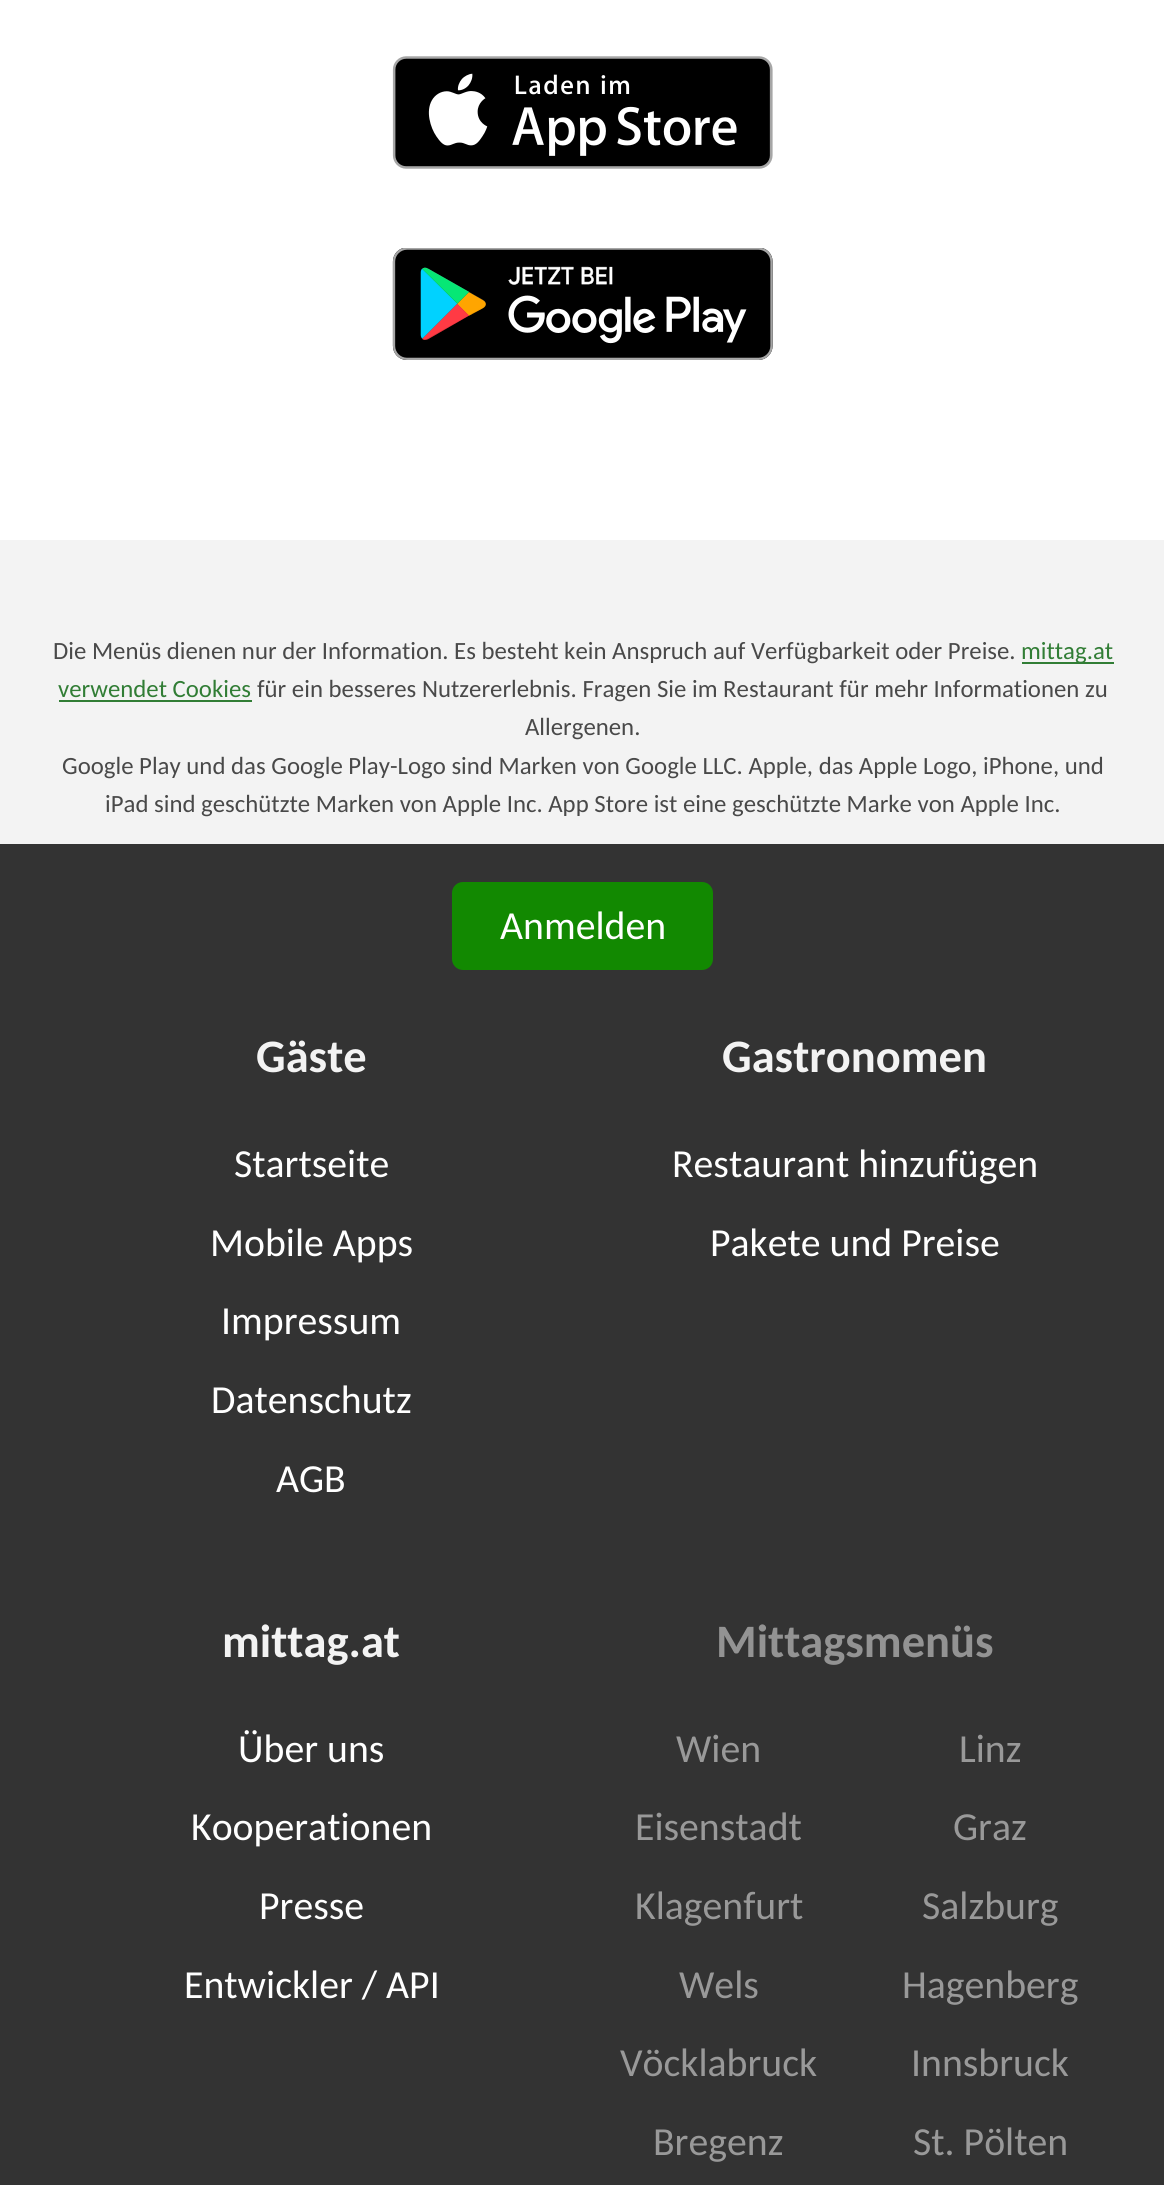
#include <cairo.h>
#include <math.h>
#include <stddef.h>


static void rgb(cairo_t *cr, int r, int g, int b)
{
	cairo_set_source_rgb(cr, r / 255.0, g / 255.0, b / 255.0);
}

static void face(cairo_t *cr, const char *family, double size, int italic, int bold)
{
	cairo_select_font_face(cr, family, italic ? CAIRO_FONT_SLANT_ITALIC : CAIRO_FONT_SLANT_NORMAL,
		bold ? CAIRO_FONT_WEIGHT_BOLD : CAIRO_FONT_WEIGHT_NORMAL);
	cairo_set_font_size(cr, size);
}

static void label(cairo_t *cr, double x, double y, const char *s)
{
	cairo_move_to(cr, x, y);
	cairo_show_text(cr, s);
}

static void rect(cairo_t *cr, double x, double y, double w, double h)
{
	cairo_rectangle(cr, x, y, w, h);
	cairo_fill(cr);
}

static void rrect(cairo_t *cr, double x, double y, double w, double h, double r)
{
	cairo_new_sub_path(cr);
	cairo_arc(cr, x + w - r, y + h - r, r, 0, M_PI / 2);
	cairo_arc(cr, x + r, y + h - r, r, M_PI / 2, M_PI);
	cairo_arc(cr, x + r, y + r, r, M_PI, 1.5 * M_PI);
	cairo_arc(cr, x + w - r, y + r, r, 1.5 * M_PI, 2 * M_PI);
	cairo_close_path(cr);
}

static void image(cairo_t *cr, const char *path, double x, double y, double w, double h)
{
	cairo_surface_t *image = cairo_image_surface_create_from_png(path);
	cairo_save(cr);
	cairo_set_source_surface(cr, image, x, y);
	cairo_rectangle(cr, x, y, w, h);
	cairo_fill(cr);
	cairo_restore(cr);
	cairo_surface_destroy(image);
}

static void draw(cairo_t *cr) {
	rgb(cr, 243, 243, 243);
	cairo_paint(cr);
	rgb(cr, 255, 255, 255);
	rect(cr, 0, 0, 1164, 540);
	image(cr, "image0.png", 392, 56, 381, 113);
	image(cr, "image1.png", 392, 248, 381, 112);
	face(cr, "Carlito", 24.8, 0, 0);
	rgb(cr, 73, 73, 73);
	label(cr, 53, 659, "Die Menüs dienen nur der Information. Es besteht kein Anspruch auf Verfügbarkeit oder Preise.");
	rgb(cr, 49, 125, 53);
	rect(cr, 1022, 662, 92, 2);
	label(cr, 1021, 659, "mittag.at");
	label(cr, 58, 697, "verwendet Cookies");
	rect(cr, 59, 700, 193, 2);
	rgb(cr, 73, 73, 73);
	label(cr, 257, 697, "für ein besseres Nutzererlebnis. Fragen Sie im Restaurant für mehr Informationen zu");
	label(cr, 525, 735, "Allergenen.");
	label(cr, 62, 774, "Google Play und das Google Play-Logo sind Marken von Google LLC. Apple, das Apple Logo, iPhone, und");
	label(cr, 105, 812, "iPad sind geschützte Marken von Apple Inc. App Store ist eine geschützte Marke von Apple Inc.");
	rgb(cr, 51, 51, 51);
	rect(cr, 0, 844, 1164, 1341);
	rgb(cr, 18, 137, 1);
	rrect(cr, 453, 883, 259, 86, 10);
	cairo_fill_preserve(cr);
	cairo_stroke(cr);
	face(cr, "Carlito", 39.75, 0, 0);
	rgb(cr, 255, 255, 255);
	label(cr, 500, 939, "Anmelden");
	face(cr, "Carlito", 46.5, 0, 1);
	rgb(cr, 243, 243, 243);
	label(cr, 256, 1072, "Gäste");
	face(cr, "Carlito", 39.75, 0, 0);
	rgb(cr, 255, 255, 255);
	label(cr, 234, 1177, "Startseite");
	label(cr, 210, 1256, "Mobile Apps");
	label(cr, 221, 1334, "Impressum");
	label(cr, 211, 1413, "Datenschutz");
	label(cr, 276, 1492, "AGB");
	face(cr, "Carlito", 46.5, 0, 1);
	rgb(cr, 243, 243, 243);
	label(cr, 722, 1072, "Gastronomen");
	face(cr, "Carlito", 39.75, 0, 0);
	rgb(cr, 255, 255, 255);
	label(cr, 672, 1177, "Restaurant hinzufügen");
	label(cr, 710, 1256, "Pakete und Preise");
	face(cr, "Carlito", 46.5, 0, 1);
	rgb(cr, 243, 243, 243);
	label(cr, 222, 1657, "mittag.at");
	face(cr, "Carlito", 39.75, 0, 0);
	rgb(cr, 255, 255, 255);
	label(cr, 238, 1762, "Über uns");
	label(cr, 191, 1840, "Kooperationen");
	label(cr, 259, 1919, "Presse");
	label(cr, 184, 1998, "Entwickler / API");
	face(cr, "Carlito", 46.5, 0, 1);
	rgb(cr, 147, 147, 147);
	label(cr, 716, 1657, "Mittagsmenüs");
	face(cr, "Carlito", 39.75, 0, 0);
	rgb(cr, 153, 153, 153);
	label(cr, 676, 1762, "Wien");
	label(cr, 959, 1762, "Linz");
	label(cr, 635, 1840, "Eisenstadt");
	label(cr, 953, 1840, "Graz");
	label(cr, 635, 1919, "Klagenfurt");
	label(cr, 922, 1919, "Salzburg");
	label(cr, 679, 1998, "Wels");
	label(cr, 902, 1998, "Hagenberg");
	label(cr, 620, 2076, "Vöcklabruck");
	label(cr, 911, 2076, "Innsbruck");
	label(cr, 653, 2155, "Bregenz");
	label(cr, 913, 2155, "St. Pölten");
}

int main(void) {
	cairo_surface_t *surface = cairo_image_surface_create(CAIRO_FORMAT_RGB24, 1164, 2185);
	cairo_t *cr = cairo_create(surface);
	cairo_font_options_t *options = cairo_font_options_create();
	cairo_font_options_set_hint_metrics(options, CAIRO_HINT_METRICS_OFF);
	cairo_font_options_set_hint_style(options, CAIRO_HINT_STYLE_NONE);
	cairo_set_font_options(cr, options);
	cairo_set_miter_limit(cr, 4);
	draw(cr);
	cairo_surface_write_to_png(surface, "render.png");
	cairo_font_options_destroy(options);
	cairo_destroy(cr);
	cairo_surface_destroy(surface);
	return 0;
}
